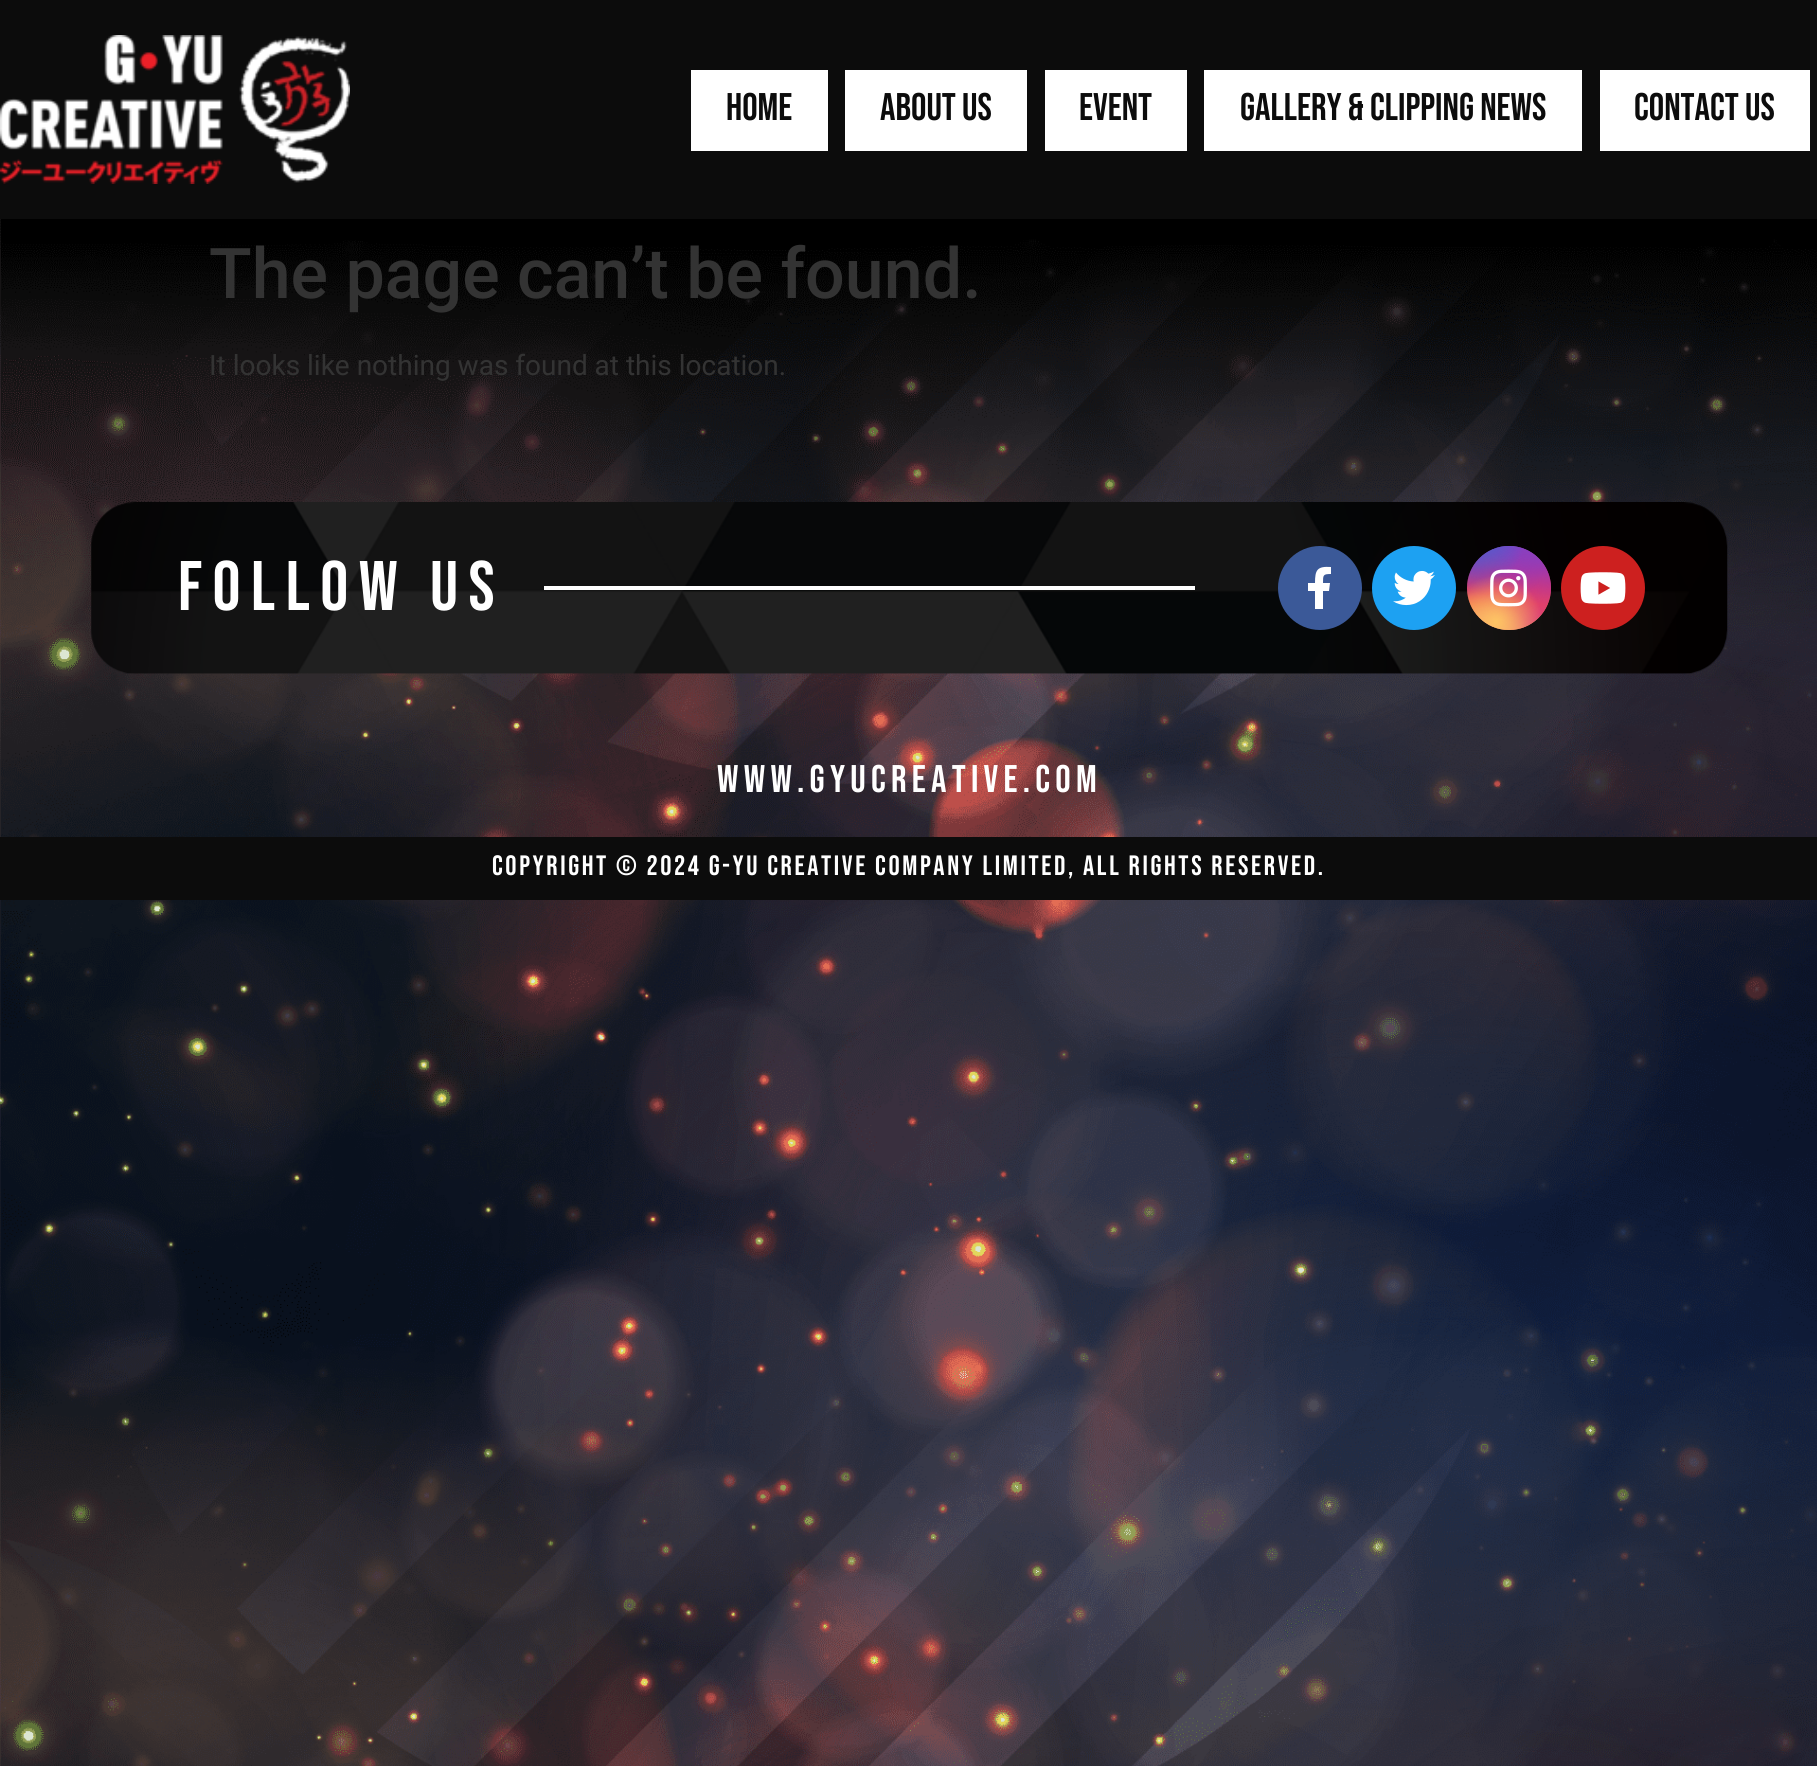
#include <cairo.h>
#include <math.h>
#include <stddef.h>


static void rgb(cairo_t *cr, int r, int g, int b)
{
	cairo_set_source_rgb(cr, r / 255.0, g / 255.0, b / 255.0);
}

static void face(cairo_t *cr, const char *family, double size, int italic, int bold)
{
	cairo_select_font_face(cr, family, italic ? CAIRO_FONT_SLANT_ITALIC : CAIRO_FONT_SLANT_NORMAL,
		bold ? CAIRO_FONT_WEIGHT_BOLD : CAIRO_FONT_WEIGHT_NORMAL);
	cairo_set_font_size(cr, size);
}

static void label(cairo_t *cr, double x, double y, const char *s)
{
	cairo_move_to(cr, x, y);
	cairo_show_text(cr, s);
}

static void tracked(cairo_t *cr, double x, double y, const char *s, double letter, double word)
{
	cairo_move_to(cr, x, y);
	while (*s) {
		char ch[5] = {0};
		int n = 0;
		do ch[n++] = *s++; while ((*s & 0xC0) == 0x80);
		cairo_show_text(cr, ch);
		cairo_rel_move_to(cr, letter + word * (*ch == ' '), 0);
	}
}

static void rect(cairo_t *cr, double x, double y, double w, double h)
{
	cairo_rectangle(cr, x, y, w, h);
	cairo_fill(cr);
}

static void image(cairo_t *cr, const char *path, double x, double y, double w, double h)
{
	cairo_surface_t *image = cairo_image_surface_create_from_png(path);
	cairo_save(cr);
	cairo_set_source_surface(cr, image, x, y);
	cairo_rectangle(cr, x, y, w, h);
	cairo_fill(cr);
	cairo_restore(cr);
	cairo_surface_destroy(image);
}

static void draw(cairo_t *cr) {
	cairo_pattern_t *gradient;
	rgb(cr, 255, 255, 255);
	cairo_paint(cr);
	image(cr, "image0.png", 0, 219, 1817, 1547);
	rgb(cr, 12, 12, 12);
	rect(cr, 0, 0, 1817, 219);
	image(cr, "image1.png", 0, 35, 350, 149);
	rgb(cr, 255, 255, 255);
	rect(cr, 691, 70, 137, 81);
	face(cr, "Bebas Neue", 38.5, 0, 0);
	rgb(cr, 12, 12, 12);
	label(cr, 726, 120, "HOME");
	rgb(cr, 255, 255, 255);
	rect(cr, 845, 70, 182, 81);
	rgb(cr, 12, 12, 12);
	label(cr, 880, 120, "ABOUT US");
	rgb(cr, 255, 255, 255);
	rect(cr, 1045, 70, 142, 81);
	rgb(cr, 12, 12, 12);
	label(cr, 1079, 120, "EVENT");
	rgb(cr, 255, 255, 255);
	rect(cr, 1204, 70, 378, 81);
	rgb(cr, 12, 12, 12);
	label(cr, 1240, 120, "GALLERY & CLIPPING NEWS");
	rgb(cr, 255, 255, 255);
	rect(cr, 1600, 70, 210, 81);
	rgb(cr, 12, 12, 12);
	label(cr, 1634, 120, "CONTACT US");
	face(cr, "Roboto Medium", 70, 0, 0);
	rgb(cr, 51, 51, 51);
	label(cr, 209, 298, "The page can’t be found.");
	face(cr, "Roboto", 28, 0, 0);
	label(cr, 209, 375, "It looks like nothing was found at this location.");
	image(cr, "image2.png", 91, 502, 1637, 172);
	face(cr, "Bebas Neue", 70, 0, 0);
	rgb(cr, 255, 255, 255);
	tracked(cr, 178, 610, "FOLLOW US", 10.5, 0);
	rect(cr, 544, 586, 651, 4);
	rgb(cr, 59, 89, 152);
	cairo_new_path(cr);
	cairo_arc(cr, 1320, 588, 42, 0, 2 * M_PI);
	cairo_fill(cr);
	rgb(cr, 255, 255, 255);
	cairo_new_path(cr);
	cairo_move_to(cr, 1329, 591);
	cairo_line_to(cr, 1323, 591);
	cairo_line_to(cr, 1323, 609);
	cairo_line_to(cr, 1315, 609);
	cairo_line_to(cr, 1315, 591);
	cairo_line_to(cr, 1308, 591);
	cairo_line_to(cr, 1308, 583);
	cairo_line_to(cr, 1315, 583);
	cairo_curve_to(cr, 1315, 570, 1317, 566, 1331, 567);
	cairo_line_to(cr, 1331, 574);
	cairo_curve_to(cr, 1323, 574, 1323, 575, 1323, 583);
	cairo_line_to(cr, 1330, 583);
	cairo_close_path(cr);
	cairo_fill(cr);
	rgb(cr, 29, 161, 242);
	cairo_arc(cr, 1414, 588, 42, 0, 2 * M_PI);
	cairo_fill(cr);
	image(cr, "image3.png", 1393, 570, 42, 36);
	gradient = cairo_pattern_create_linear(1509, 546, 1509, 630);
	cairo_pattern_add_color_stop_rgba(gradient, 0, 0.396, 0.349, 0.792, 1);
	cairo_pattern_add_color_stop_rgba(gradient, 0.3, 0.737, 0.192, 0.561, 1);
	cairo_pattern_add_color_stop_rgba(gradient, 0.5, 0.89, 0.247, 0.373, 1);
	cairo_pattern_add_color_stop_rgba(gradient, 0.7, 0.969, 0.463, 0.22, 1);
	cairo_pattern_add_color_stop_rgba(gradient, 1, 0.996, 0.776, 0.427, 1);
	cairo_set_source(cr, gradient);
	cairo_pattern_destroy(gradient);
	cairo_arc(cr, 1509, 588, 42, 0, 2 * M_PI);
	cairo_fill(cr);
	gradient = cairo_pattern_create_radial(1551, 630, 0, 1551, 630, 119);
	cairo_pattern_add_color_stop_rgba(gradient, 0, 0.851, 0.192, 0.478, 1);
	cairo_pattern_add_color_stop_rgba(gradient, 1, 0.851, 0.192, 0.478, 0);
	cairo_set_source(cr, gradient);
	cairo_pattern_destroy(gradient);
	cairo_arc(cr, 1509, 588, 42, 0, 2 * M_PI);
	cairo_fill(cr);
	gradient = cairo_pattern_create_radial(0, 0, 0, 0, 0, 1);
	cairo_pattern_set_matrix(gradient, &(cairo_matrix_t){1.0 / 71, 0, 0, 1.0 / 143, -1.0 * 1517 / 71, -1.0 * 529 / 143});
	cairo_pattern_add_color_stop_rgba(gradient, 0, 0.537, 0.239, 0.761, 1);
	cairo_pattern_add_color_stop_rgba(gradient, 0.5, 0.537, 0.239, 0.761, 0);
	cairo_set_source(cr, gradient);
	cairo_pattern_destroy(gradient);
	cairo_arc(cr, 1509, 588, 42, 0, 2 * M_PI);
	cairo_fill(cr);
	gradient = cairo_pattern_create_radial(1551, 546, 0, 1551, 546, 119);
	cairo_pattern_add_color_stop_rgba(gradient, 0, 0.537, 0.239, 0.761, 1);
	cairo_pattern_add_color_stop_rgba(gradient, 0.5, 0.537, 0.239, 0.761, 0);
	cairo_set_source(cr, gradient);
	cairo_pattern_destroy(gradient);
	cairo_arc(cr, 1509, 588, 42, 0, 2 * M_PI);
	cairo_fill(cr);
	gradient = cairo_pattern_create_radial(0, 0, 0, 0, 0, 1);
	cairo_pattern_set_matrix(gradient, &(cairo_matrix_t){1.0 / 95, 0, 0, 1.0 / 178, -1.0 * 1483 / 95, -1.0 * 504 / 178});
	cairo_pattern_add_color_stop_rgba(gradient, 0, 0.322, 0.345, 0.812, 1);
	cairo_pattern_add_color_stop_rgba(gradient, 0.5, 0.322, 0.345, 0.812, 0);
	cairo_set_source(cr, gradient);
	cairo_pattern_destroy(gradient);
	cairo_arc(cr, 1509, 588, 42, 0, 2 * M_PI);
	cairo_fill(cr);
	gradient = cairo_pattern_create_radial(0, 0, 0, 0, 0, 1);
	cairo_pattern_set_matrix(gradient, &(cairo_matrix_t){1.0 / 119, 0, 0, 1.0 / 148, -1.0 * 1467 / 119, -1.0 * 525 / 148});
	cairo_pattern_add_color_stop_rgba(gradient, 0, 0.322, 0.345, 0.812, 1);
	cairo_pattern_add_color_stop_rgba(gradient, 0.5, 0.322, 0.345, 0.812, 0);
	cairo_set_source(cr, gradient);
	cairo_pattern_destroy(gradient);
	cairo_arc(cr, 1509, 588, 42, 0, 2 * M_PI);
	cairo_fill(cr);
	gradient = cairo_pattern_create_radial(1467, 664, 0, 1467, 664, 145);
	cairo_pattern_add_color_stop_rgba(gradient, 0, 0.996, 0.773, 0.392, 1);
	cairo_pattern_add_color_stop_rgba(gradient, 0.5, 0.996, 0.773, 0.392, 0);
	cairo_set_source(cr, gradient);
	cairo_pattern_destroy(gradient);
	cairo_arc(cr, 1509, 588, 42, 0, 2 * M_PI);
	cairo_fill(cr);
	gradient = cairo_pattern_create_radial(1496, 622, 0, 1496, 622, 93);
	cairo_pattern_add_color_stop_rgba(gradient, 0, 0.996, 0.773, 0.392, 1);
	cairo_pattern_add_color_stop_rgba(gradient, 0.5, 0.996, 0.773, 0.392, 0);
	cairo_set_source(cr, gradient);
	cairo_pattern_destroy(gradient);
	cairo_arc(cr, 1509, 588, 42, 0, 2 * M_PI);
	cairo_fill(cr);
	image(cr, "image4.png", 1490, 569, 37, 38);
	rgb(cr, 205, 32, 31);
	cairo_arc(cr, 1603, 588, 42, 0, 2 * M_PI);
	cairo_fill(cr);
	image(cr, "image5.png", 1580, 572, 46, 32);
	face(cr, "Bebas Neue", 38.5, 0, 0);
	rgb(cr, 255, 255, 255);
	tracked(cr, 717, 792, "www.gyucreative.com", 5.25, 0);
	rgb(cr, 12, 12, 12);
	rect(cr, 0, 837, 1817, 63);
	face(cr, "Bebas Neue", 28, 0, 0);
	rgb(cr, 255, 255, 255);
	tracked(cr, 492, 875, "COPYRIGHT © 2024 G-YU Creative Company Limited, ALL RIGHTS RESERVED.", 2.62, 0);
}

int main(void) {
	cairo_surface_t *surface = cairo_image_surface_create(CAIRO_FORMAT_RGB24, 1817, 1766);
	cairo_t *cr = cairo_create(surface);
	cairo_font_options_t *options = cairo_font_options_create();
	cairo_font_options_set_hint_metrics(options, CAIRO_HINT_METRICS_OFF);
	cairo_font_options_set_hint_style(options, CAIRO_HINT_STYLE_NONE);
	cairo_set_font_options(cr, options);
	cairo_set_miter_limit(cr, 4);
	draw(cr);
	cairo_surface_write_to_png(surface, "render.png");
	cairo_font_options_destroy(options);
	cairo_destroy(cr);
	cairo_surface_destroy(surface);
	return 0;
}
